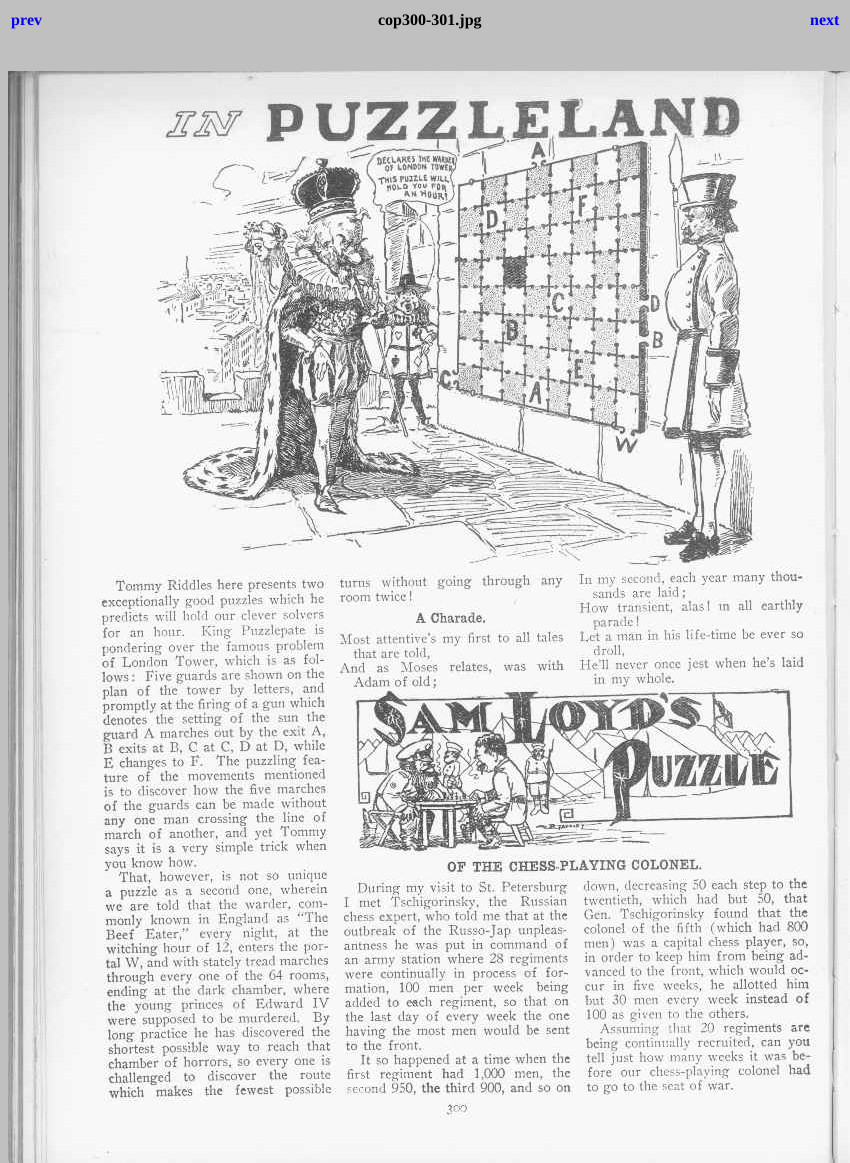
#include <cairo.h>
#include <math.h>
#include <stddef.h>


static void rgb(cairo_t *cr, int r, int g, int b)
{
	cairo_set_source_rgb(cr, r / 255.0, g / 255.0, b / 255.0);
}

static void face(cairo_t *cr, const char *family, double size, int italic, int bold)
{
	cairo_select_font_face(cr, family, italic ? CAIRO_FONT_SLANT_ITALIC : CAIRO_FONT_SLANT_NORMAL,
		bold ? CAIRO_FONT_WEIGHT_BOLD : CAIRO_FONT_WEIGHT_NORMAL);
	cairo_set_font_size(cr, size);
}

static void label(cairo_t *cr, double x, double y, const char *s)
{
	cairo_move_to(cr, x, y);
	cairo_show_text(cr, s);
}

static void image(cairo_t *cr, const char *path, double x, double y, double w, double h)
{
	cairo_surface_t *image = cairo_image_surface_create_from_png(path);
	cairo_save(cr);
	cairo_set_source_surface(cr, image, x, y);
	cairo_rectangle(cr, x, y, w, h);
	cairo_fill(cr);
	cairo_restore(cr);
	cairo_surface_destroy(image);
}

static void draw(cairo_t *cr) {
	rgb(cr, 192, 192, 192);
	cairo_paint(cr);
	face(cr, "Liberation Serif", 16, 0, 1);
	rgb(cr, 0, 0, 238);
	label(cr, 11, 25, "prev");
	rgb(cr, 0, 0, 0);
	label(cr, 378, 25, "cop300-301.jpg");
	rgb(cr, 0, 0, 238);
	label(cr, 810, 25, "next");
	image(cr, "image0.png", 8, 71, 842, 1092);
}

int main(void) {
	cairo_surface_t *surface = cairo_image_surface_create(CAIRO_FORMAT_RGB24, 850, 1163);
	cairo_t *cr = cairo_create(surface);
	cairo_font_options_t *options = cairo_font_options_create();
	cairo_font_options_set_hint_metrics(options, CAIRO_HINT_METRICS_OFF);
	cairo_font_options_set_hint_style(options, CAIRO_HINT_STYLE_NONE);
	cairo_set_font_options(cr, options);
	cairo_set_miter_limit(cr, 4);
	draw(cr);
	cairo_surface_write_to_png(surface, "render.png");
	cairo_font_options_destroy(options);
	cairo_destroy(cr);
	cairo_surface_destroy(surface);
	return 0;
}
